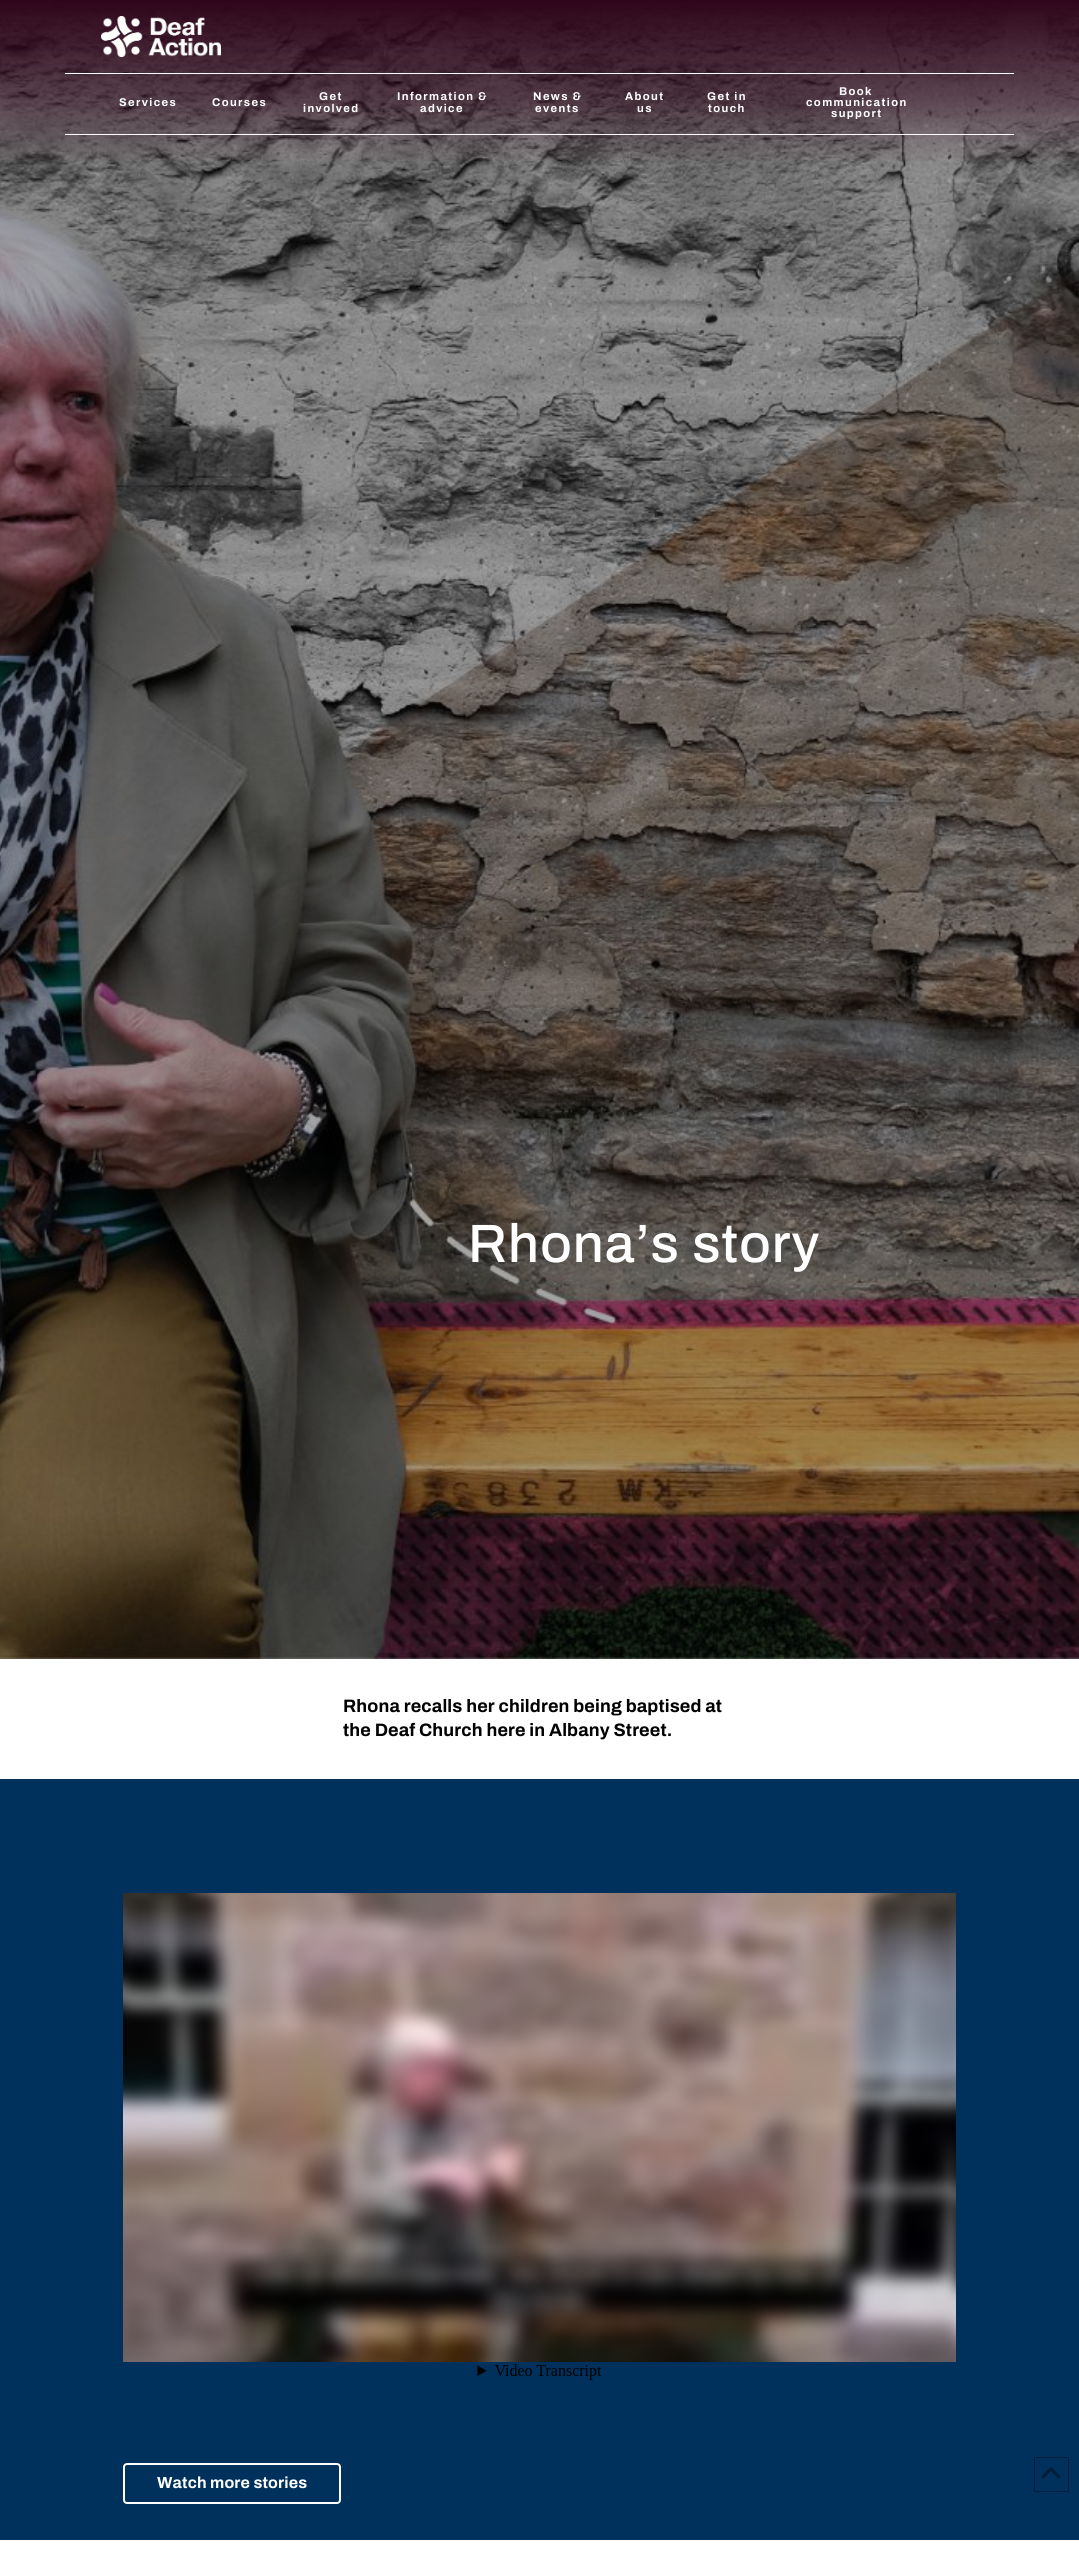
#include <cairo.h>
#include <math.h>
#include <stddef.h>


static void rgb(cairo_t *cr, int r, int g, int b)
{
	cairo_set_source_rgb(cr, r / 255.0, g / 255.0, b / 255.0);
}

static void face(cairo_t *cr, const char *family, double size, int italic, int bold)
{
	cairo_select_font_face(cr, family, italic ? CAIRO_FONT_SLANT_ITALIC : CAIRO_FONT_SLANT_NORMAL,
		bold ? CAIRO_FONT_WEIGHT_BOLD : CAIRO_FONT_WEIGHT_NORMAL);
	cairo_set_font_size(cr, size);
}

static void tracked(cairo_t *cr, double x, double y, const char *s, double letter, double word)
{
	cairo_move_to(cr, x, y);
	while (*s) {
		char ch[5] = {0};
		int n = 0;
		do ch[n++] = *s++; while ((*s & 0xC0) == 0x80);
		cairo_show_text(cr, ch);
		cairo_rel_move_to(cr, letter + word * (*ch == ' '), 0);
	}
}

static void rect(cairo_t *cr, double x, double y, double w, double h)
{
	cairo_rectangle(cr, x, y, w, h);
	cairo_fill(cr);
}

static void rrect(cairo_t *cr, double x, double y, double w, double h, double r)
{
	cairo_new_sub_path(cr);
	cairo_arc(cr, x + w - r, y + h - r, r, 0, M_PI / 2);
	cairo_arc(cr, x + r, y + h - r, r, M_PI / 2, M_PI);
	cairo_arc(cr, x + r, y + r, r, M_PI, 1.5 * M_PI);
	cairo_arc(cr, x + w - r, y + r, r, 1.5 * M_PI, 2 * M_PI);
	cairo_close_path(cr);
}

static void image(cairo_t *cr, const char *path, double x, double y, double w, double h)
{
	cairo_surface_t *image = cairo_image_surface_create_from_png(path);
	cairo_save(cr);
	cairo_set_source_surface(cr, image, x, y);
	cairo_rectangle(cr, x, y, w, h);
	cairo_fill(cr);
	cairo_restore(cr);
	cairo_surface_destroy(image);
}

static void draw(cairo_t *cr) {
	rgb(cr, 255, 255, 255);
	cairo_paint(cr);
	image(cr, "image1.png", 0, 0, 1079, 1659);
	image(cr, "image0.png", 101, 16, 120, 41);
	rgb(cr, 255, 255, 255);
	rect(cr, 65, 73, 949, 1);
	rect(cr, 65, 134, 949, 1);
	face(cr, "Archivo", 11.25, 0, 1);
	tracked(cr, 119, 106, "Services", 1.4, 0);
	tracked(cr, 212, 106, "Courses", 1.4, 0);
	tracked(cr, 319, 100, "Get", 1.4, 0);
	tracked(cr, 303, 112, "involved", 1.4, 0);
	tracked(cr, 397, 100, "Information &", 1.4, 0);
	tracked(cr, 420, 112, "advice", 1.4, 0);
	tracked(cr, 533, 100, "News &", 1.4, 0);
	tracked(cr, 535, 112, "events", 1.4, 0);
	tracked(cr, 625, 100, "About", 1.4, 0);
	tracked(cr, 637, 112, "us", 1.4, 0);
	tracked(cr, 707, 100, "Get in", 1.4, 0);
	tracked(cr, 708, 112, "touch", 1.4, 0);
	tracked(cr, 839, 95, "Book", 1.4, 0);
	tracked(cr, 806, 106, "communication", 1.4, 0);
	tracked(cr, 831, 117, "support", 1.4, 0);
	face(cr, "Archivo Medium", 54, 0, 0);
	tracked(cr, 468, 1262, "Rhona’s story", 1.1, 0);
	face(cr, "Archivo", 18, 0, 1);
	rgb(cr, 0, 0, 0);
	tracked(cr, 343, 1712, "Rhona recalls her children being baptised at", 0.15, 0);
	tracked(cr, 343, 1736, "the Deaf Church here in Albany Street.", 0.15, 0);
	rgb(cr, 0, 48, 92);
	rect(cr, 0, 1779, 1079, 761);
	image(cr, "image2.png", 123, 1893, 833, 487);
	rrect(cr, 124, 2464, 216, 39, 3);
	rgb(cr, 255, 255, 255);
	cairo_stroke(cr);
	face(cr, "Archivo", 16, 0, 1);
	tracked(cr, 157, 2488, "Watch more stories", 0.15, 0);
	cairo_rectangle(cr, 1034.5, 2457.5, 34, 34);
	rgb(cr, 0, 30, 58);
	cairo_set_line_width(cr, 1);
	cairo_stroke(cr);
	image(cr, "image3.png", 1041, 2467, 20, 12);
}

int main(void) {
	cairo_surface_t *surface = cairo_image_surface_create(CAIRO_FORMAT_RGB24, 1079, 2552);
	cairo_t *cr = cairo_create(surface);
	cairo_font_options_t *options = cairo_font_options_create();
	cairo_font_options_set_hint_metrics(options, CAIRO_HINT_METRICS_OFF);
	cairo_font_options_set_hint_style(options, CAIRO_HINT_STYLE_NONE);
	cairo_set_font_options(cr, options);
	cairo_set_miter_limit(cr, 4);
	draw(cr);
	cairo_surface_write_to_png(surface, "render.png");
	cairo_font_options_destroy(options);
	cairo_destroy(cr);
	cairo_surface_destroy(surface);
	return 0;
}
